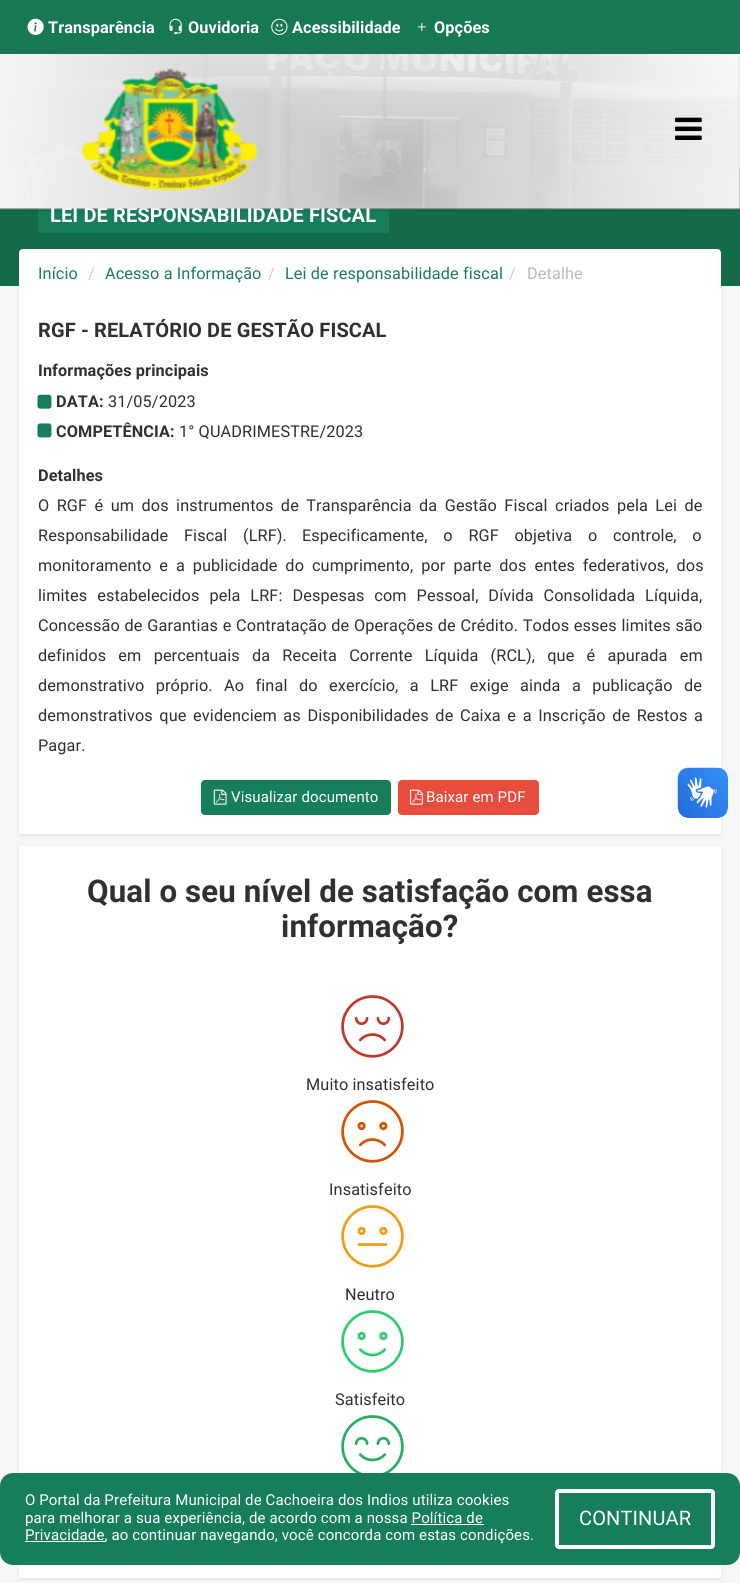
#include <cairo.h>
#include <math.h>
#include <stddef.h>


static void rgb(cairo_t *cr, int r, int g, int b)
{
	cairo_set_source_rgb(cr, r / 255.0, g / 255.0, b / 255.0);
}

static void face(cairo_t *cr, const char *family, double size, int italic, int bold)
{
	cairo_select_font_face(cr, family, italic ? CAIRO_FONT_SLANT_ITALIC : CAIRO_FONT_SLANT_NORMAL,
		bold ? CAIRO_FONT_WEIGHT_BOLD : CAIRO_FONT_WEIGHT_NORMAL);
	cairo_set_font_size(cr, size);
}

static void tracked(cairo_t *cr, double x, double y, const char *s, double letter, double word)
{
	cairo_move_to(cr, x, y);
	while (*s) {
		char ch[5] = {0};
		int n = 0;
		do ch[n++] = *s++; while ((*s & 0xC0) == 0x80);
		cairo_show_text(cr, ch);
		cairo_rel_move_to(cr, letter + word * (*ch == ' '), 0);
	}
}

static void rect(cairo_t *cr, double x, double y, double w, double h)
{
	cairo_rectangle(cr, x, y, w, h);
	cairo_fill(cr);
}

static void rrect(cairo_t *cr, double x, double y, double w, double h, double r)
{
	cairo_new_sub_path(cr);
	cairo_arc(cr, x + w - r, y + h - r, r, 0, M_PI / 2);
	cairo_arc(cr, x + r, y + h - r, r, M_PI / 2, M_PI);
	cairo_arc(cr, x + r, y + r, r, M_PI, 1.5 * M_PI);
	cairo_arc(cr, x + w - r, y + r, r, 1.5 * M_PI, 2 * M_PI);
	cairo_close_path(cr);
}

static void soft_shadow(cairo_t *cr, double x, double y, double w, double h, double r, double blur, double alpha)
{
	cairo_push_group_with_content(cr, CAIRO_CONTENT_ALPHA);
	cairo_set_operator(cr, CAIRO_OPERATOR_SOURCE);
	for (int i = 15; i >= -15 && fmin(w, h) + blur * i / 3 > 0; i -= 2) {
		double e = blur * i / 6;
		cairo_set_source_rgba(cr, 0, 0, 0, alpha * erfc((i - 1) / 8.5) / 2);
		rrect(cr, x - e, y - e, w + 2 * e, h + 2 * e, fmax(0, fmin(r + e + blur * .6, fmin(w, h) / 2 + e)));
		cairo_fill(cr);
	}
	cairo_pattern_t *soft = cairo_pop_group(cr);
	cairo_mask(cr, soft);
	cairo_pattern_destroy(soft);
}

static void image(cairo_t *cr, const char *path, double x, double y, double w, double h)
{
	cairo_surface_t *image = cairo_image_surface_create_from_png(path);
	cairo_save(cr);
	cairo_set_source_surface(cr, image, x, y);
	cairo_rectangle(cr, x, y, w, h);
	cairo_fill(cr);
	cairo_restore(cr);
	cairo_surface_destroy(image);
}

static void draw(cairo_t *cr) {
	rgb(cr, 246, 247, 248);
	cairo_paint(cr);
	rgb(cr, 3, 0, 71);
	soft_shadow(cr, 19, 250, 702, 585, 0, 2, 0.09);
	rgb(cr, 19, 107, 74);
	rect(cr, 0, 168, 740, 118);
	rgb(cr, 22, 126, 88);
	rect(cr, 38, 208, 351, 25);
	rgb(cr, 0, 0, 0);
	soft_shadow(cr, 0, 1, 740, 209, 0, 1, 0.3);
	face(cr, "Roboto", 20, 0, 1);
	rgb(cr, 255, 255, 255);
	tracked(cr, 50, 222, "LEI DE RESPONSABILIDADE FISCAL", 0.12, 0);
	image(cr, "image0.png", 0, 54, 740, 156);
	rgb(cr, 22, 121, 83);
	rect(cr, 0, 0, 740, 54);
	image(cr, "image1.png", 27, 18, 17, 17);
	face(cr, "Roboto", 16.25, 0, 1);
	rgb(cr, 255, 255, 255);
	tracked(cr, 48, 33, "Transparência", 0.12, 0);
	image(cr, "image2.png", 169, 18, 13, 16);
	tracked(cr, 188, 33, "Ouvidoria", 0.12, 0);
	image(cr, "image3.png", 271, 18, 17, 17);
	tracked(cr, 292, 33, "Acessibilidade", 0.12, 0);
	image(cr, "image4.png", 417, 22, 9, 9);
	tracked(cr, 434, 33, "Opções", 0.12, 0);
	image(cr, "image5.png", 81, 68, 177, 123);
	image(cr, "image6.png", 675, 117, 27, 23);
	rect(cr, 19, 295, 702, 539);
	rrect(cr, 19, 249, 702, 50, 4);
	cairo_fill(cr);
	face(cr, "Roboto", 16.25, 0, 0);
	rgb(cr, 22, 126, 88);
	tracked(cr, 38, 279, "Início", 0.12, 0);
	rgb(cr, 204, 204, 204);
	tracked(cr, 88, 279, "/", 0.12, 0);
	rgb(cr, 22, 126, 88);
	tracked(cr, 105, 279, "Acesso a Informação", 0.12, 0);
	rgb(cr, 204, 204, 204);
	tracked(cr, 268, 279, "/", 0.12, 0);
	rgb(cr, 22, 126, 88);
	tracked(cr, 285, 279, "Lei de responsabilidade fiscal", 0.12, 0);
	rgb(cr, 204, 204, 204);
	tracked(cr, 509, 279, "/", 0.12, 0);
	rgb(cr, 187, 187, 187);
	tracked(cr, 527, 279, "Detalhe", 0.12, 0);
	face(cr, "Roboto", 20, 0, 1);
	rgb(cr, 48, 48, 48);
	tracked(cr, 38, 337, "RGF - RELATÓRIO DE GESTÃO FISCAL", 0.12, 0);
	face(cr, "Roboto", 16.25, 0, 1);
	tracked(cr, 38, 376, "Informações principais", 0.12, 0);
	image(cr, "image7.png", 37, 394, 15, 15);
	tracked(cr, 56, 407, "DATA:", 0.12, 0);
	face(cr, "Roboto", 16.25, 0, 0);
	tracked(cr, 108, 407, "31/05/2023", 0.12, 0);
	image(cr, "image8.png", 37, 423, 15, 15);
	face(cr, "Roboto", 16.25, 0, 1);
	tracked(cr, 56, 437, "COMPETÊNCIA:", 0.12, 0);
	face(cr, "Roboto", 16.25, 0, 0);
	tracked(cr, 179, 437, "1° QUADRIMESTRE/2023", 0.12, 0);
	face(cr, "Roboto", 16.25, 0, 1);
	tracked(cr, 38, 481, "Detalhes", 0.12, 0);
	face(cr, "Roboto", 16.25, 0, 0);
	tracked(cr, 38, 511, "O RGF é um dos instrumentos de Transparência da Gestão Fiscal criados pela Lei de", 0.12, 3.25);
	tracked(cr, 38, 541, "Responsabilidade Fiscal (LRF).", 0.12, 11.5);
	tracked(cr, 302, 541, "Especificamente, o RGF objetiva o controle, o", 0.12, 11.5);
	tracked(cr, 38, 571, "monitoramento e a publicidade do cumprimento, por parte dos entes federativos, dos", 0.12, 3.75);
	tracked(cr, 38, 601, "limites estabelecidos pela LRF: Despesas com Pessoal, Dívida Consolidada Líquida,", 0.12, 5.75);
	tracked(cr, 38, 631, "Concessão de Garantias e Contratação de Operações de Crédito. Todos esses limites são", 0.12, 0.5);
	tracked(cr, 38, 661, "definidos em percentuais da Receita Corrente Líquida (RCL), que é apurada em", 0.12, 8);
	tracked(cr, 38, 691, "demonstrativo próprio.", 0.12, 7.25);
	tracked(cr, 224, 691, "Ao final do exercício, a LRF exige ainda a publicação de", 0.12, 7.25);
	tracked(cr, 38, 721, "demonstrativos que evidenciem as Disponibilidades de Caixa e a Inscrição de Restos a", 0.12, 2.4);
	tracked(cr, 38, 751, "Pagar.", 0.12, 0);
	rgb(cr, 22, 126, 88);
	rrect(cr, 201, 780, 190, 35, 4);
	cairo_fill(cr);
	image(cr, "image9.png", 213, 789, 14, 16);
	face(cr, "Roboto", 15, 0, 0);
	rgb(cr, 255, 255, 255);
	tracked(cr, 231, 802, "Visualizar documento", 0.12, 0);
	rgb(cr, 231, 76, 60);
	rrect(cr, 398, 780, 141, 35, 4);
	cairo_fill(cr);
	image(cr, "image10.png", 410, 789, 13, 16);
	rgb(cr, 255, 255, 255);
	tracked(cr, 426, 802, "Baixar em PDF", 0.12, 0);
	image(cr, "image11.png", 677, 767, 51, 51);
	image(cr, "image12.png", 678, 768, 50, 50);
	rgb(cr, 3, 0, 71);
	soft_shadow(cr, 19, 848, 702, 731, 0, 2, 0.09);
	rgb(cr, 255, 255, 255);
	rect(cr, 19, 846, 702, 732);
	face(cr, "Roboto", 31.25, 0, 1);
	rgb(cr, 48, 48, 48);
	tracked(cr, 87, 902, "Qual o seu nível de satisfação com essa", 0.12, 0);
	tracked(cr, 281, 937, "informação?", 0.12, 0);
	image(cr, "image13.png", 341, 995, 63, 63);
	face(cr, "Roboto", 16.25, 0, 0);
	tracked(cr, 306, 1090, "Muito insatisfeito", 0.12, 0);
	image(cr, "image14.png", 341, 1100, 63, 63);
	tracked(cr, 329, 1195, "Insatisfeito", 0.12, 0);
	image(cr, "image15.png", 341, 1205, 63, 63);
	tracked(cr, 345, 1300, "Neutro", 0.12, 0);
	image(cr, "image16.png", 341, 1310, 63, 63);
	tracked(cr, 335, 1405, "Satisfeito", 0.12, 0);
	image(cr, "image17.png", 341, 1415, 63, 58);
	rgb(cr, 22, 126, 88);
	rrect(cr, 0, 1473, 740, 92, 13);
	cairo_fill(cr);
	face(cr, "Roboto", 15, 0, 0);
	rgb(cr, 255, 255, 255);
	tracked(cr, 25, 1505, "O Portal da Prefeitura Municipal de Cachoeira dos Indios utiliza cookies", 0.12, 0);
	tracked(cr, 25, 1523, "para melhorar a sua experiência, de acordo com a nossa Política de", 0.12, 0);
	rect(cr, 25, 1541, 80, 1);
	tracked(cr, 25, 1540, "Privacidade, ao continuar navegando, você concorda com estas condições.", 0.12, 0);
	rect(cr, 411, 1524, 73, 1);
	rrect(cr, 557, 1491, 156, 56, 2);
	cairo_set_line_width(cr, 4);
	cairo_stroke(cr);
	face(cr, "Roboto", 20, 0, 0);
	tracked(cr, 579, 1525, "CONTINUAR", 0.12, 0);
}

int main(void) {
	cairo_surface_t *surface = cairo_image_surface_create(CAIRO_FORMAT_RGB24, 740, 1583);
	cairo_t *cr = cairo_create(surface);
	cairo_font_options_t *options = cairo_font_options_create();
	cairo_font_options_set_hint_metrics(options, CAIRO_HINT_METRICS_OFF);
	cairo_font_options_set_hint_style(options, CAIRO_HINT_STYLE_NONE);
	cairo_set_font_options(cr, options);
	cairo_set_miter_limit(cr, 4);
	draw(cr);
	cairo_surface_write_to_png(surface, "render.png");
	cairo_font_options_destroy(options);
	cairo_destroy(cr);
	cairo_surface_destroy(surface);
	return 0;
}
